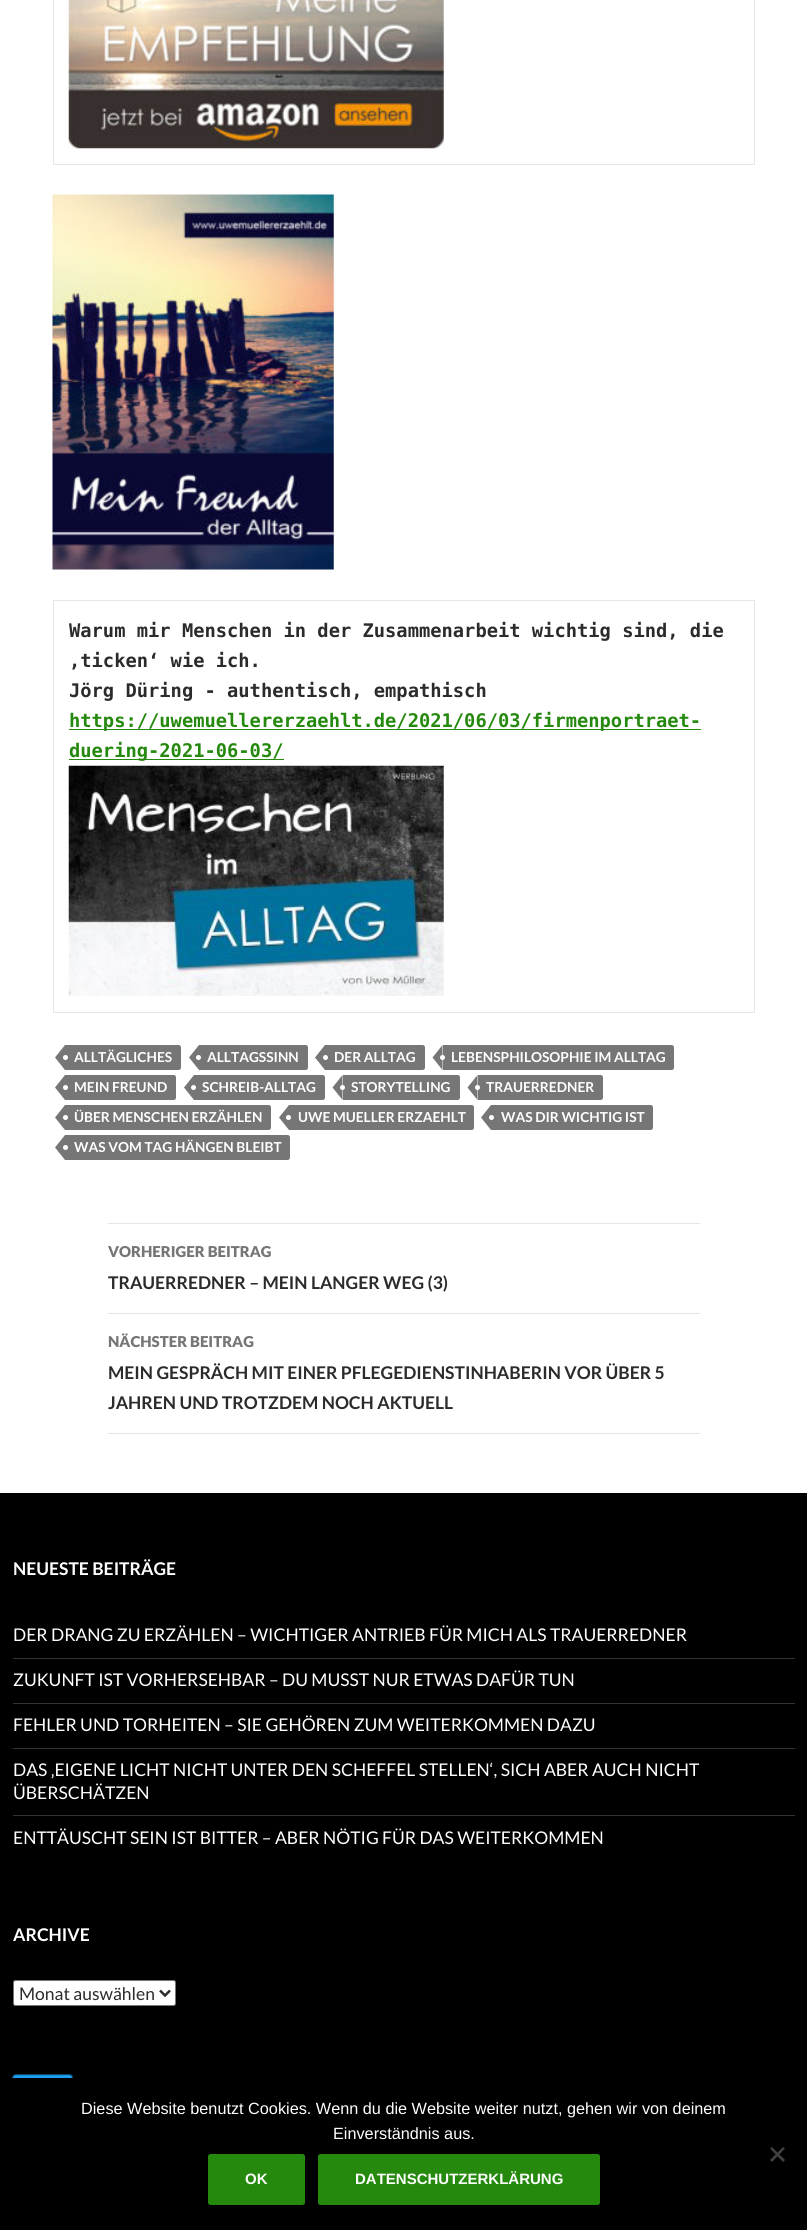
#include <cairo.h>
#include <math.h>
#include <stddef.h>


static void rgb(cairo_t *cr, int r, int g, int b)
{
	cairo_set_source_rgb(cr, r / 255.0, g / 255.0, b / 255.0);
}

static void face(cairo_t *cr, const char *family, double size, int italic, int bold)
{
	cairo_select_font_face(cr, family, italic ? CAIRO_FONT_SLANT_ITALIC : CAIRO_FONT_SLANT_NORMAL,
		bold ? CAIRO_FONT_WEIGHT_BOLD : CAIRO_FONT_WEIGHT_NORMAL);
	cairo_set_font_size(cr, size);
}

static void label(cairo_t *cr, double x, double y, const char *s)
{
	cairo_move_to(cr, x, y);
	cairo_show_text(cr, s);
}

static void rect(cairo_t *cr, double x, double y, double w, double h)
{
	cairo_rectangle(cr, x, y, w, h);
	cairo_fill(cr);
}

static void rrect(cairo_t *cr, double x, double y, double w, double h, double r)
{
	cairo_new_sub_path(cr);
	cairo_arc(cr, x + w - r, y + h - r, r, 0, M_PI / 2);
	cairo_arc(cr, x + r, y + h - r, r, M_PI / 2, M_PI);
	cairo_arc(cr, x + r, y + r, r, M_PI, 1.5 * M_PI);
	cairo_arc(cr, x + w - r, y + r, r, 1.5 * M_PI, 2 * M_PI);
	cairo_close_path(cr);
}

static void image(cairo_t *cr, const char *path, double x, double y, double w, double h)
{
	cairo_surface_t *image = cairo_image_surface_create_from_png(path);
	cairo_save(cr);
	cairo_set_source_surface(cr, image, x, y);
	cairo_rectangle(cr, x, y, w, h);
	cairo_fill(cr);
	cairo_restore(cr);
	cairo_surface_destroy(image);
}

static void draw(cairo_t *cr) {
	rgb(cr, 255, 255, 255);
	cairo_paint(cr);
	cairo_rectangle(cr, 53.5, -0.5, 701, 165);
	rgb(cr, 230, 230, 230);
	cairo_set_line_width(cr, 1);
	cairo_stroke(cr);
	image(cr, "image0.png", 68, 0, 376, 149);
	image(cr, "image1.png", 52, 194, 282, 376);
	cairo_rectangle(cr, 53.5, 600.5, 701, 412);
	cairo_stroke(cr);
	face(cr, "DejaVu Sans Mono", 18.75, 0, 1);
	rgb(cr, 43, 43, 43);
	label(cr, 69, 637, "Warum mir Menschen in der Zusammenarbeit wichtig sind, die");
	label(cr, 69, 667, "‚ticken‘ wie ich.");
	label(cr, 69, 697, "Jörg Düring - authentisch, empathisch");
	rgb(cr, 36, 137, 13);
	rect(cr, 69, 729, 632, 1);
	label(cr, 69, 727, "https://uwemuellererzaehlt.de/2021/06/03/firmenportraet-");
	rect(cr, 69, 759, 215, 1);
	label(cr, 69, 757, "duering-2021-06-03/");
	image(cr, "image2.png", 68, 765, 376, 231);
	rgb(cr, 118, 118, 118);
	cairo_new_path(cr);
	cairo_move_to(cr, 65, 1045);
	cairo_line_to(cr, 178.5, 1045);
	cairo_curve_to(cr, 180, 1045, 181, 1046, 181, 1047.5);
	cairo_line_to(cr, 181, 1067.5);
	cairo_curve_to(cr, 181, 1069, 180, 1070, 178.5, 1070);
	cairo_line_to(cr, 65, 1070);
	cairo_close_path(cr);
	cairo_fill(cr);
	cairo_new_path(cr);
	cairo_move_to(cr, 65, 1045);
	cairo_line_to(cr, 65, 1070);
	cairo_line_to(cr, 55, 1057.5);
	cairo_close_path(cr);
	cairo_fill(cr);
	rgb(cr, 255, 255, 255);
	cairo_arc(cr, 65.5, 1057.5, 2.5, 0, 2 * M_PI);
	cairo_fill(cr);
	face(cr, "Lato", 13.75, 0, 1);
	label(cr, 74, 1062, "ALLTÄGLICHES");
	rgb(cr, 118, 118, 118);
	cairo_new_path(cr);
	cairo_move_to(cr, 199, 1045);
	cairo_line_to(cr, 305.5, 1045);
	cairo_curve_to(cr, 307, 1045, 308, 1046, 308, 1047.5);
	cairo_line_to(cr, 308, 1067.5);
	cairo_curve_to(cr, 308, 1069, 307, 1070, 305.5, 1070);
	cairo_line_to(cr, 199, 1070);
	cairo_close_path(cr);
	cairo_fill(cr);
	cairo_new_path(cr);
	cairo_move_to(cr, 199, 1045);
	cairo_line_to(cr, 199, 1070);
	cairo_line_to(cr, 189, 1057.5);
	cairo_close_path(cr);
	cairo_fill(cr);
	rgb(cr, 255, 255, 255);
	label(cr, 207, 1062, "ALLTAGSSINN");
	cairo_new_path(cr);
	cairo_arc(cr, 198.5, 1057.5, 2.5, 0, 2 * M_PI);
	cairo_fill(cr);
	rgb(cr, 118, 118, 118);
	cairo_new_path(cr);
	cairo_move_to(cr, 325, 1045);
	cairo_line_to(cr, 422.5, 1045);
	cairo_curve_to(cr, 424, 1045, 425, 1046, 425, 1047.5);
	cairo_line_to(cr, 425, 1067.5);
	cairo_curve_to(cr, 425, 1069, 424, 1070, 422.5, 1070);
	cairo_line_to(cr, 325, 1070);
	cairo_close_path(cr);
	cairo_fill(cr);
	cairo_new_path(cr);
	cairo_move_to(cr, 325, 1045);
	cairo_line_to(cr, 325, 1070);
	cairo_line_to(cr, 315, 1057.5);
	cairo_close_path(cr);
	cairo_fill(cr);
	rgb(cr, 255, 255, 255);
	cairo_arc(cr, 325.5, 1057.5, 2.5, 0, 2 * M_PI);
	cairo_fill(cr);
	label(cr, 334, 1062, "DER ALLTAG");
	rgb(cr, 118, 118, 118);
	cairo_new_path(cr);
	cairo_move_to(cr, 443, 1045);
	cairo_line_to(cr, 671.5, 1045);
	cairo_curve_to(cr, 673, 1045, 674, 1046, 674, 1047.5);
	cairo_line_to(cr, 674, 1067.5);
	cairo_curve_to(cr, 674, 1069, 673, 1070, 671.5, 1070);
	cairo_line_to(cr, 443, 1070);
	cairo_close_path(cr);
	cairo_fill(cr);
	cairo_new_path(cr);
	cairo_move_to(cr, 442.5, 1045);
	cairo_line_to(cr, 442.5, 1070);
	cairo_line_to(cr, 432.5, 1057.5);
	cairo_close_path(cr);
	cairo_fill(cr);
	rgb(cr, 255, 255, 255);
	label(cr, 451, 1062, "LEBENSPHILOSOPHIE IM ALLTAG");
	cairo_new_path(cr);
	cairo_arc(cr, 442.5, 1057.5, 2.5, 0, 2 * M_PI);
	cairo_fill(cr);
	rgb(cr, 118, 118, 118);
	cairo_new_path(cr);
	cairo_move_to(cr, 65, 1075);
	cairo_line_to(cr, 173.5, 1075);
	cairo_curve_to(cr, 175, 1075, 176, 1076, 176, 1077.5);
	cairo_line_to(cr, 176, 1097.5);
	cairo_curve_to(cr, 176, 1099, 175, 1100, 173.5, 1100);
	cairo_line_to(cr, 65, 1100);
	cairo_close_path(cr);
	cairo_fill(cr);
	cairo_new_path(cr);
	cairo_move_to(cr, 65, 1075);
	cairo_line_to(cr, 65, 1100);
	cairo_line_to(cr, 55, 1087.5);
	cairo_close_path(cr);
	cairo_fill(cr);
	rgb(cr, 255, 255, 255);
	cairo_arc(cr, 65.5, 1087.5, 2.5, 0, 2 * M_PI);
	cairo_fill(cr);
	label(cr, 74, 1092, "MEIN FREUND");
	rgb(cr, 118, 118, 118);
	cairo_new_path(cr);
	cairo_move_to(cr, 194, 1075);
	cairo_line_to(cr, 322.5, 1075);
	cairo_curve_to(cr, 324, 1075, 325, 1076, 325, 1077.5);
	cairo_line_to(cr, 325, 1097.5);
	cairo_curve_to(cr, 325, 1099, 324, 1100, 322.5, 1100);
	cairo_line_to(cr, 194, 1100);
	cairo_close_path(cr);
	cairo_fill(cr);
	cairo_new_path(cr);
	cairo_move_to(cr, 194, 1075);
	cairo_line_to(cr, 194, 1100);
	cairo_line_to(cr, 184, 1087.5);
	cairo_close_path(cr);
	cairo_fill(cr);
	rgb(cr, 255, 255, 255);
	label(cr, 202, 1092, "SCHREIB-ALLTAG");
	cairo_new_path(cr);
	cairo_arc(cr, 193.5, 1087.5, 2.5, 0, 2 * M_PI);
	cairo_fill(cr);
	rgb(cr, 118, 118, 118);
	cairo_new_path(cr);
	cairo_move_to(cr, 343, 1075);
	cairo_line_to(cr, 457.5, 1075);
	cairo_curve_to(cr, 459, 1075, 460, 1076, 460, 1077.5);
	cairo_line_to(cr, 460, 1097.5);
	cairo_curve_to(cr, 460, 1099, 459, 1100, 457.5, 1100);
	cairo_line_to(cr, 343, 1100);
	cairo_close_path(cr);
	cairo_fill(cr);
	cairo_new_path(cr);
	cairo_move_to(cr, 342.5, 1075);
	cairo_line_to(cr, 342.5, 1100);
	cairo_line_to(cr, 332.5, 1087.5);
	cairo_close_path(cr);
	cairo_fill(cr);
	rgb(cr, 255, 255, 255);
	label(cr, 351, 1092, "STORYTELLING");
	cairo_new_path(cr);
	cairo_arc(cr, 342.5, 1087.5, 2.5, 0, 2 * M_PI);
	cairo_fill(cr);
	rgb(cr, 118, 118, 118);
	cairo_new_path(cr);
	cairo_move_to(cr, 478, 1075);
	cairo_line_to(cr, 600.5, 1075);
	cairo_curve_to(cr, 602, 1075, 603, 1076, 603, 1077.5);
	cairo_line_to(cr, 603, 1097.5);
	cairo_curve_to(cr, 603, 1099, 602, 1100, 600.5, 1100);
	cairo_line_to(cr, 478, 1100);
	cairo_close_path(cr);
	cairo_fill(cr);
	cairo_new_path(cr);
	cairo_move_to(cr, 477.5, 1075);
	cairo_line_to(cr, 477.5, 1100);
	cairo_line_to(cr, 467.5, 1087.5);
	cairo_close_path(cr);
	cairo_fill(cr);
	rgb(cr, 255, 255, 255);
	label(cr, 486, 1092, "TRAUERREDNER");
	cairo_new_path(cr);
	cairo_arc(cr, 477.5, 1087.5, 2.5, 0, 2 * M_PI);
	cairo_fill(cr);
	rgb(cr, 118, 118, 118);
	cairo_new_path(cr);
	cairo_move_to(cr, 65, 1105);
	cairo_line_to(cr, 268.5, 1105);
	cairo_curve_to(cr, 270, 1105, 271, 1106, 271, 1107.5);
	cairo_line_to(cr, 271, 1127.5);
	cairo_curve_to(cr, 271, 1129, 270, 1130, 268.5, 1130);
	cairo_line_to(cr, 65, 1130);
	cairo_close_path(cr);
	cairo_fill(cr);
	cairo_new_path(cr);
	cairo_move_to(cr, 65, 1105);
	cairo_line_to(cr, 65, 1130);
	cairo_line_to(cr, 55, 1117.5);
	cairo_close_path(cr);
	cairo_fill(cr);
	rgb(cr, 255, 255, 255);
	cairo_arc(cr, 65.5, 1117.5, 2.5, 0, 2 * M_PI);
	cairo_fill(cr);
	label(cr, 74, 1122, "ÜBER MENSCHEN ERZÄHLEN");
	rgb(cr, 118, 118, 118);
	cairo_new_path(cr);
	cairo_move_to(cr, 289, 1105);
	cairo_line_to(cr, 471.5, 1105);
	cairo_curve_to(cr, 473, 1105, 474, 1106, 474, 1107.5);
	cairo_line_to(cr, 474, 1127.5);
	cairo_curve_to(cr, 474, 1129, 473, 1130, 471.5, 1130);
	cairo_line_to(cr, 289, 1130);
	cairo_close_path(cr);
	cairo_fill(cr);
	cairo_new_path(cr);
	cairo_move_to(cr, 289, 1105);
	cairo_line_to(cr, 289, 1130);
	cairo_line_to(cr, 279, 1117.5);
	cairo_close_path(cr);
	cairo_fill(cr);
	rgb(cr, 255, 255, 255);
	label(cr, 298, 1122, "UWE MUELLER ERZAEHLT");
	cairo_new_path(cr);
	cairo_arc(cr, 288.5, 1117.5, 2.5, 0, 2 * M_PI);
	cairo_fill(cr);
	rgb(cr, 118, 118, 118);
	cairo_new_path(cr);
	cairo_move_to(cr, 491, 1105);
	cairo_line_to(cr, 650.5, 1105);
	cairo_curve_to(cr, 652, 1105, 653, 1106, 653, 1107.5);
	cairo_line_to(cr, 653, 1127.5);
	cairo_curve_to(cr, 653, 1129, 652, 1130, 650.5, 1130);
	cairo_line_to(cr, 491, 1130);
	cairo_close_path(cr);
	cairo_fill(cr);
	cairo_new_path(cr);
	cairo_move_to(cr, 491, 1105);
	cairo_line_to(cr, 491, 1130);
	cairo_line_to(cr, 481, 1117.5);
	cairo_close_path(cr);
	cairo_fill(cr);
	rgb(cr, 255, 255, 255);
	cairo_arc(cr, 491.5, 1117.5, 2.5, 0, 2 * M_PI);
	cairo_fill(cr);
	label(cr, 501, 1122, "WAS DIR WICHTIG IST");
	rgb(cr, 118, 118, 118);
	cairo_new_path(cr);
	cairo_move_to(cr, 65, 1135);
	cairo_line_to(cr, 287.5, 1135);
	cairo_curve_to(cr, 289, 1135, 290, 1136, 290, 1137.5);
	cairo_line_to(cr, 290, 1157.5);
	cairo_curve_to(cr, 290, 1159, 289, 1160, 287.5, 1160);
	cairo_line_to(cr, 65, 1160);
	cairo_close_path(cr);
	cairo_fill(cr);
	cairo_new_path(cr);
	cairo_move_to(cr, 65, 1135);
	cairo_line_to(cr, 65, 1160);
	cairo_line_to(cr, 55, 1147.5);
	cairo_close_path(cr);
	cairo_fill(cr);
	rgb(cr, 255, 255, 255);
	cairo_arc(cr, 65.5, 1147.5, 2.5, 0, 2 * M_PI);
	cairo_fill(cr);
	label(cr, 74, 1152, "WAS VOM TAG HÄNGEN BLEIBT");
	rgb(cr, 230, 230, 230);
	rect(cr, 108, 1223, 592, 1);
	rect(cr, 108, 1313, 592, 1);
	face(cr, "Lato Black", 15, 0, 0);
	rgb(cr, 118, 118, 118);
	label(cr, 108, 1257, "VORHERIGER BEITRAG");
	face(cr, "Lato", 17.5, 0, 1);
	rgb(cr, 43, 43, 43);
	label(cr, 108, 1289, "TRAUERREDNER – MEIN LANGER WEG (3)");
	rgb(cr, 230, 230, 230);
	rect(cr, 108, 1433, 592, 1);
	face(cr, "Lato Black", 15, 0, 0);
	rgb(cr, 118, 118, 118);
	label(cr, 108, 1347, "NÄCHSTER BEITRAG");
	face(cr, "Lato", 17.5, 0, 1);
	rgb(cr, 43, 43, 43);
	label(cr, 108, 1379, "MEIN GESPRÄCH MIT EINER PFLEGEDIENSTINHABERIN VOR ÜBER 5");
	label(cr, 108, 1409, "JAHREN UND TROTZDEM NOCH AKTUELL");
	rgb(cr, 0, 0, 0);
	rect(cr, 0, 1493, 807, 737);
	rgb(cr, 255, 255, 255);
	label(cr, 13, 1575, "NEUESTE BEITRÄGE");
	face(cr, "Lato", 17.5, 0, 0);
	label(cr, 13, 1641, "DER DRANG ZU ERZÄHLEN – WICHTIGER ANTRIEB FÜR MICH ALS TRAUERREDNER");
	rgb(cr, 51, 51, 51);
	rect(cr, 13, 1658, 782, 1);
	rgb(cr, 255, 255, 255);
	label(cr, 13, 1686, "ZUKUNFT IST VORHERSEHBAR – DU MUSST NUR ETWAS DAFÜR TUN");
	rgb(cr, 51, 51, 51);
	rect(cr, 13, 1703, 782, 1);
	rgb(cr, 255, 255, 255);
	label(cr, 13, 1731, "FEHLER UND TORHEITEN – SIE GEHÖREN ZUM WEITERKOMMEN DAZU");
	rgb(cr, 51, 51, 51);
	rect(cr, 13, 1748, 782, 1);
	rgb(cr, 255, 255, 255);
	label(cr, 13, 1776, "DAS ‚EIGENE LICHT NICHT UNTER DEN SCHEFFEL STELLEN‘, SICH ABER AUCH NICHT");
	label(cr, 13, 1799, "ÜBERSCHÄTZEN");
	rgb(cr, 51, 51, 51);
	rect(cr, 13, 1815, 782, 1);
	rgb(cr, 255, 255, 255);
	label(cr, 13, 1844, "ENTTÄUSCHT SEIN IST BITTER – ABER NÖTIG FÜR DAS WEITERKOMMEN");
	face(cr, "Lato", 17.5, 0, 1);
	label(cr, 13, 1941, "ARCHIVE");
	rrect(cr, 13.5, 1980.5, 162, 25, 2);
	cairo_fill_preserve(cr);
	rgb(cr, 118, 118, 118);
	cairo_stroke(cr);
	cairo_new_path(cr);
	cairo_move_to(cr, 160, 1990.5);
	cairo_line_to(cr, 165, 1995.5);
	cairo_line_to(cr, 170, 1990.5);
	rgb(cr, 43, 43, 43);
	cairo_set_line_width(cr, 2.5);
	cairo_stroke(cr);
	face(cr, "Lato", 17.5, 0, 0);
	label(cr, 19, 2000, "Monat auswählen");
	image(cr, "image3.png", 12, 2074, 61, 4);
	face(cr, "Liberation Sans", 16.25, 0, 0);
	rgb(cr, 255, 255, 255);
	label(cr, 81, 2114, "Diese Website benutzt Cookies. Wenn du die Website weiter nutzt, gehen wir von deinem");
	label(cr, 333, 2139, "Einverständnis aus.");
	rgb(cr, 64, 64, 64);
	cairo_new_path(cr);
	cairo_move_to(cr, 783, 2147);
	cairo_line_to(cr, 785, 2148.5);
	cairo_line_to(cr, 772, 2162);
	cairo_line_to(cr, 770, 2160);
	cairo_close_path(cr);
	cairo_fill(cr);
	cairo_new_path(cr);
	cairo_move_to(cr, 770, 2148.5);
	cairo_line_to(cr, 772, 2147);
	cairo_line_to(cr, 785, 2160);
	cairo_line_to(cr, 783, 2162);
	cairo_close_path(cr);
	cairo_fill(cr);
	rgb(cr, 36, 137, 13);
	rrect(cr, 208, 2154, 97, 51, 2.5);
	cairo_fill(cr);
	face(cr, "Liberation Sans", 15, 0, 1);
	rgb(cr, 255, 255, 255);
	label(cr, 245, 2184, "OK");
	rgb(cr, 36, 137, 13);
	rrect(cr, 318, 2154, 282, 51, 2.5);
	cairo_fill(cr);
	rgb(cr, 255, 255, 255);
	label(cr, 355, 2184, "DATENSCHUTZERKLÄRUNG");
}

int main(void) {
	cairo_surface_t *surface = cairo_image_surface_create(CAIRO_FORMAT_RGB24, 807, 2230);
	cairo_t *cr = cairo_create(surface);
	cairo_font_options_t *options = cairo_font_options_create();
	cairo_font_options_set_hint_metrics(options, CAIRO_HINT_METRICS_OFF);
	cairo_font_options_set_hint_style(options, CAIRO_HINT_STYLE_NONE);
	cairo_set_font_options(cr, options);
	cairo_set_miter_limit(cr, 4);
	draw(cr);
	cairo_surface_write_to_png(surface, "render.png");
	cairo_font_options_destroy(options);
	cairo_destroy(cr);
	cairo_surface_destroy(surface);
	return 0;
}
